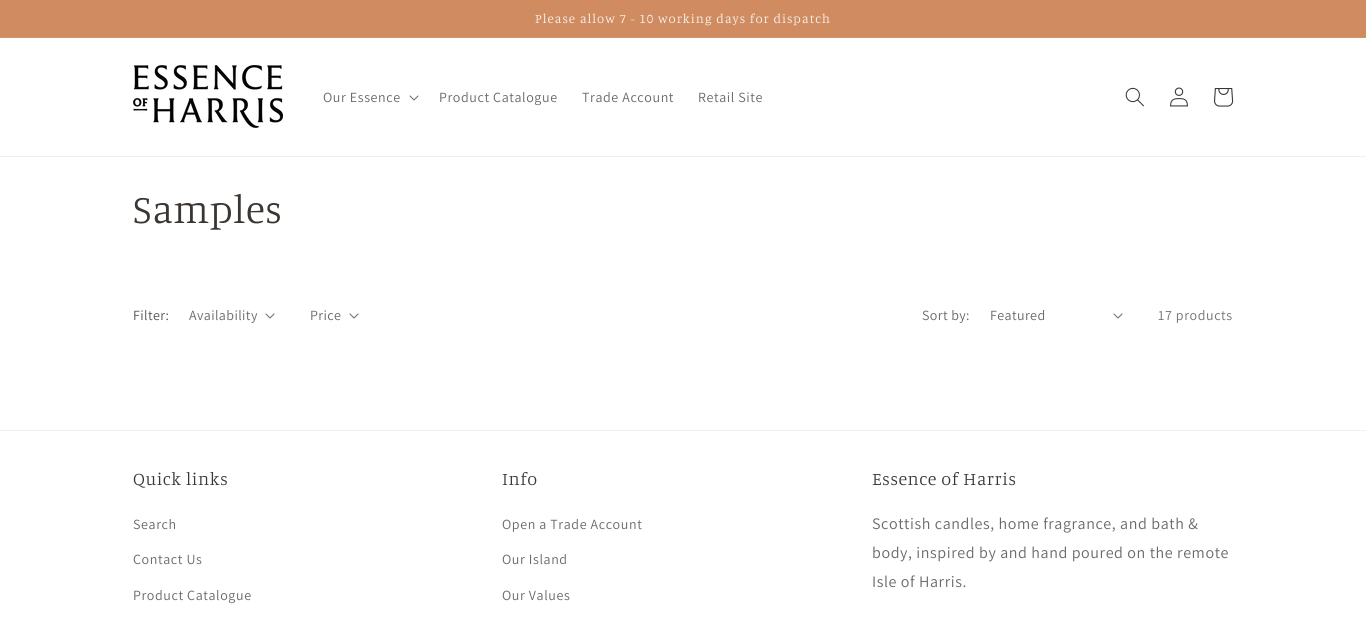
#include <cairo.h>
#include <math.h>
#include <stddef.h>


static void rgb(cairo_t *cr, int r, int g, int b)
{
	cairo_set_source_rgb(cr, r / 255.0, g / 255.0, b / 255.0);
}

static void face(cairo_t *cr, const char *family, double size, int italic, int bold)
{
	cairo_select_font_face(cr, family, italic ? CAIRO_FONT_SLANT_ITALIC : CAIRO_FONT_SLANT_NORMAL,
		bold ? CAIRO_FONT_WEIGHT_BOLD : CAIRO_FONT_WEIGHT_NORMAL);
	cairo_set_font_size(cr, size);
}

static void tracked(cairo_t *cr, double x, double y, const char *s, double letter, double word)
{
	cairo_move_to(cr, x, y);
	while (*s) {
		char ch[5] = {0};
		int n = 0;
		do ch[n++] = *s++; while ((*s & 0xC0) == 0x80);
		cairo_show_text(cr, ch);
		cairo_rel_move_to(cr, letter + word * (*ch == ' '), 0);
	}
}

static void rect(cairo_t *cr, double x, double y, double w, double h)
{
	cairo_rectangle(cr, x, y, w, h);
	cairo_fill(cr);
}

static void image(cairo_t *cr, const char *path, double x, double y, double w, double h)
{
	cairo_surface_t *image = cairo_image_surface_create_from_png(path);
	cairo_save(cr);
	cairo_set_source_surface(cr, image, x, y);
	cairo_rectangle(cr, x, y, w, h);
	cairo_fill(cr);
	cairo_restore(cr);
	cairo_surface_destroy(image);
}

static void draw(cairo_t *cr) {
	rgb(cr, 255, 255, 255);
	cairo_paint(cr);
	rgb(cr, 208, 140, 96);
	rect(cr, 0, 0, 1366, 37);
	rgb(cr, 211, 148, 108);
	rect(cr, 0, 37, 1366, 1);
	face(cr, "Manuale Light", 13, 0, 0);
	rgb(cr, 247, 246, 244);
	tracked(cr, 535, 23, "Please allow 7 - 10 working days for dispatch", 1, 0);
	rgb(cr, 239, 239, 239);
	rect(cr, 0, 156, 1366, 1);
	image(cr, "image0.png", 133, 65, 150, 63);
	face(cr, "Assistant", 14, 0, 0);
	rgb(cr, 108, 104, 101);
	tracked(cr, 323, 102, "Our Essence", 0.6, 0);
	image(cr, "image1.png", 409, 95, 10, 6);
	tracked(cr, 439, 102, "Product Catalogue", 0.6, 0);
	tracked(cr, 582, 102, "Trade Account", 0.6, 0);
	tracked(cr, 698, 102, "Retail Site", 0.6, 0);
	image(cr, "image2.png", 1125, 87, 19, 20);
	image(cr, "image3.png", 1170, 87, 18, 20);
	image(cr, "image4.png", 1214, 88, 20, 19);
	face(cr, "Manuale Light", 40, 0, 0);
	rgb(cr, 59, 54, 50);
	tracked(cr, 133, 223, "Samples", 0.6, 0);
	face(cr, "Assistant", 14, 0, 0);
	rgb(cr, 88, 84, 81);
	tracked(cr, 133, 320, "Filter:", 0.4, 0);
	rgb(cr, 108, 104, 101);
	tracked(cr, 189, 320, "Availability", 0.4, 0);
	image(cr, "image1.png", 265, 313, 10, 6);
	tracked(cr, 310, 320, "Price", 0.4, 0);
	image(cr, "image1.png", 349, 313, 10, 6);
	tracked(cr, 922, 320, "Sort by:", 0.4, 0);
	tracked(cr, 990, 320, "Featured", 0.4, 0);
	image(cr, "image1.png", 1113, 313, 10, 6);
	rgb(cr, 118, 114, 112);
	tracked(cr, 1158, 320, "17 products", 0.6, 0);
	rgb(cr, 239, 239, 239);
	rect(cr, 0, 430, 1366, 1);
	face(cr, "Manuale Light", 18, 0, 0);
	rgb(cr, 59, 54, 50);
	tracked(cr, 133, 485, "Quick links", 0.6, 0);
	face(cr, "Assistant", 14, 0, 0);
	rgb(cr, 108, 104, 101);
	tracked(cr, 133, 529, "Search", 0.6, 0);
	tracked(cr, 133, 564, "Contact Us", 0.6, 0);
	tracked(cr, 133, 600, "Product Catalogue", 0.6, 0);
	face(cr, "Manuale Light", 18, 0, 0);
	rgb(cr, 59, 54, 50);
	tracked(cr, 502, 485, "Info", 0.6, 0);
	face(cr, "Assistant", 14, 0, 0);
	rgb(cr, 108, 104, 101);
	tracked(cr, 502, 529, "Open a Trade Account", 0.6, 0);
	tracked(cr, 502, 564, "Our Island", 0.6, 0);
	tracked(cr, 502, 600, "Our Values", 0.6, 0);
	face(cr, "Manuale Light", 18, 0, 0);
	rgb(cr, 59, 54, 50);
	tracked(cr, 872, 485, "Essence of Harris", 0.6, 0);
	face(cr, "Assistant", 16, 0, 0);
	rgb(cr, 108, 104, 101);
	tracked(cr, 872, 529, "Scottish candles, home fragrance, and bath &", 0.6, 0);
	tracked(cr, 872, 558, "body, inspired by and hand poured on the remote", 0.6, 0);
	tracked(cr, 872, 587, "Isle of Harris.", 0.6, 0);
}

int main(void) {
	cairo_surface_t *surface = cairo_image_surface_create(CAIRO_FORMAT_RGB24, 1366, 629);
	cairo_t *cr = cairo_create(surface);
	cairo_font_options_t *options = cairo_font_options_create();
	cairo_font_options_set_hint_metrics(options, CAIRO_HINT_METRICS_OFF);
	cairo_font_options_set_hint_style(options, CAIRO_HINT_STYLE_NONE);
	cairo_set_font_options(cr, options);
	cairo_set_miter_limit(cr, 4);
	draw(cr);
	cairo_surface_write_to_png(surface, "render.png");
	cairo_font_options_destroy(options);
	cairo_destroy(cr);
	cairo_surface_destroy(surface);
	return 0;
}
